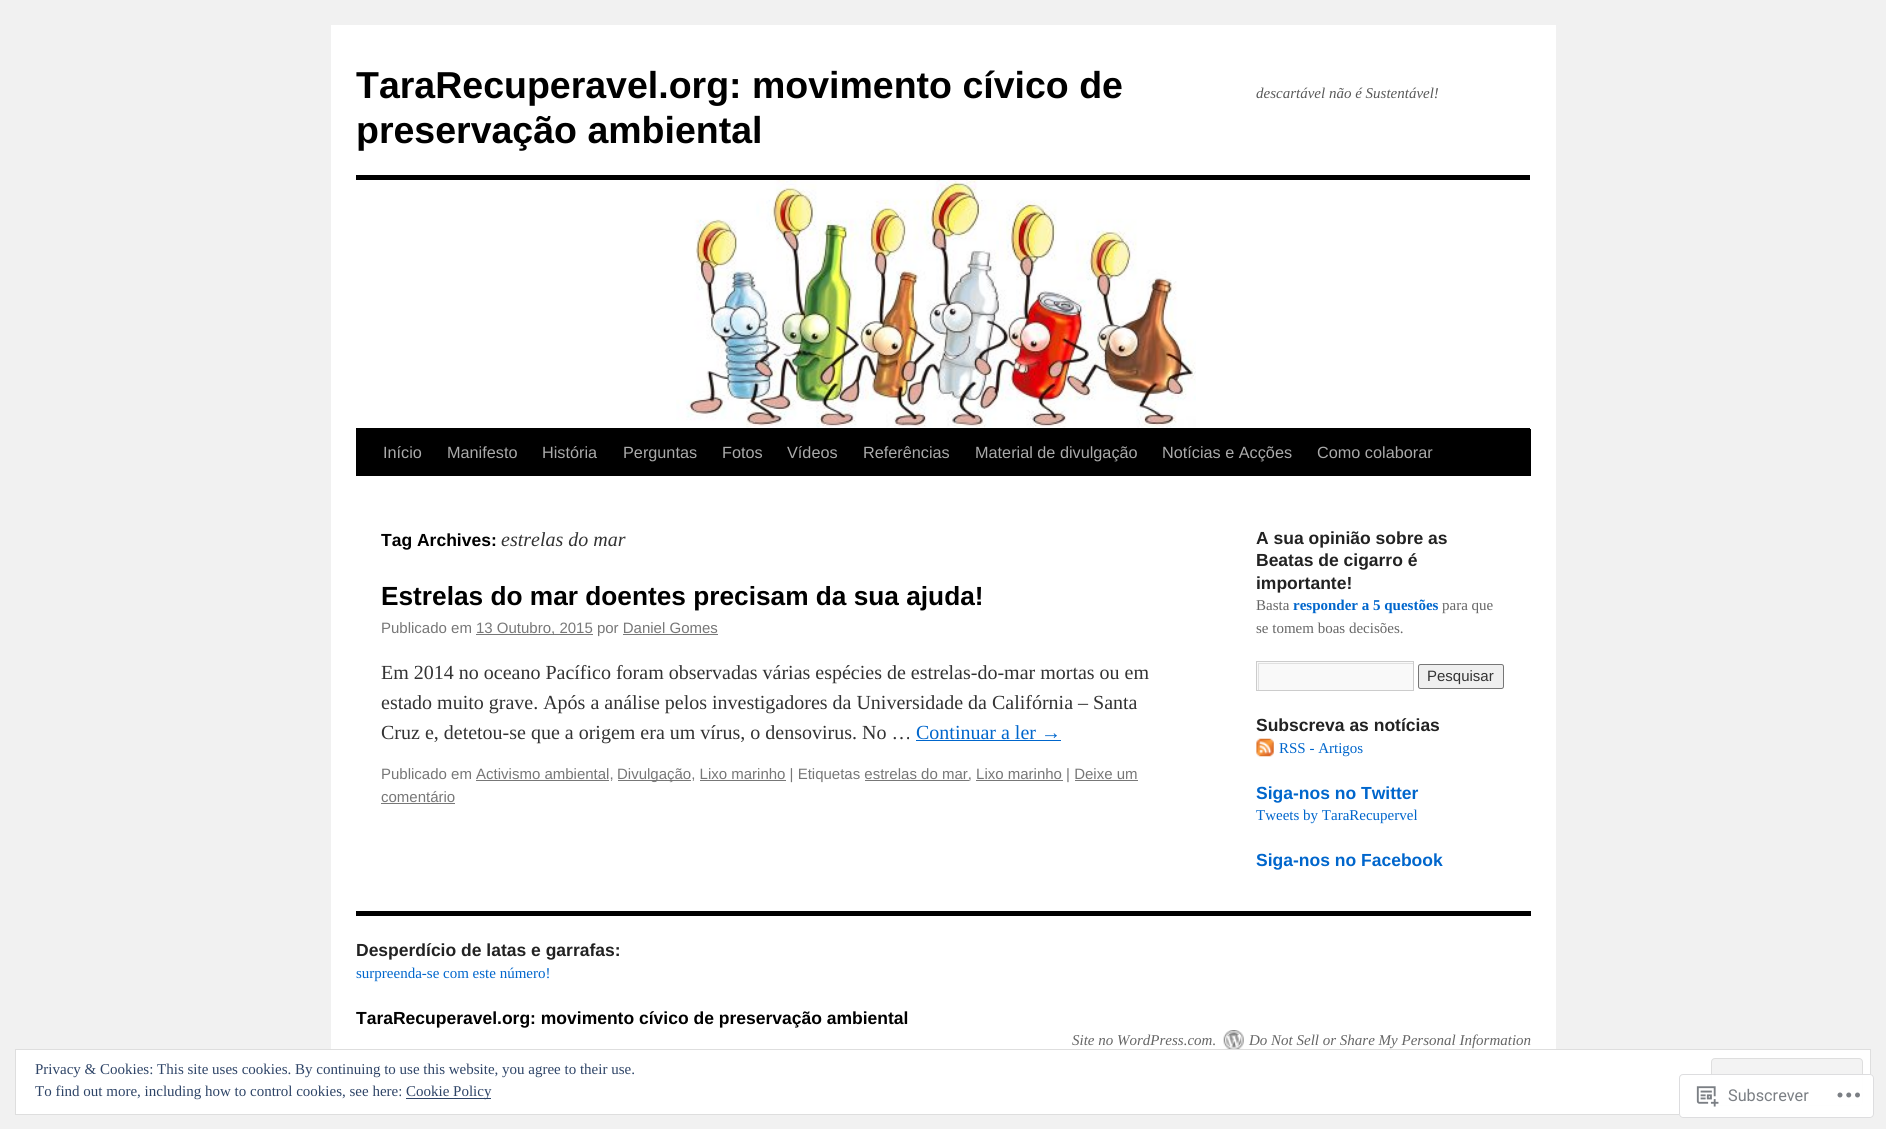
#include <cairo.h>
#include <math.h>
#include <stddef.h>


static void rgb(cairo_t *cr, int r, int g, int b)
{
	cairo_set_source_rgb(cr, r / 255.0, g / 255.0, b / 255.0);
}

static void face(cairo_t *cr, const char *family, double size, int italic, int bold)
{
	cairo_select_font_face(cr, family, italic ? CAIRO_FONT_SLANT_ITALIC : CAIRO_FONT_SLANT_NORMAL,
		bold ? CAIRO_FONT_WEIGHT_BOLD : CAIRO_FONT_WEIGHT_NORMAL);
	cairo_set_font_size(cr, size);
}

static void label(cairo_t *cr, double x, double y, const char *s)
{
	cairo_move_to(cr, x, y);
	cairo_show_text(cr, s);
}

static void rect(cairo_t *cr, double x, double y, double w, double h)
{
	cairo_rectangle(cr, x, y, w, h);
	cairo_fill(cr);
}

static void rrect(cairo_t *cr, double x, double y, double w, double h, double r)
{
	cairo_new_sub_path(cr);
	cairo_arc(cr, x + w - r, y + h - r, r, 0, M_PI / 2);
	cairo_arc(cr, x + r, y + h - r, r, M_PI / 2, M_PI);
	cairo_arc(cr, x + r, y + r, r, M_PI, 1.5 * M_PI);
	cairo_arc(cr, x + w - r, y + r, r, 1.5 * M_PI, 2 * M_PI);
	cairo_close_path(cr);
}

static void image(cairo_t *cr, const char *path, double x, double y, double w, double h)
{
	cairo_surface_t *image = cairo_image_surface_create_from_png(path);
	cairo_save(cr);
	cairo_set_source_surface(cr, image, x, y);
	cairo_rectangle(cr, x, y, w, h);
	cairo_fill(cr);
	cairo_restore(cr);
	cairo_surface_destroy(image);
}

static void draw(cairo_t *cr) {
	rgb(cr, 241, 241, 241);
	cairo_paint(cr);
	rgb(cr, 255, 255, 255);
	rect(cr, 331, 25, 1225, 1024);
	face(cr, "Liberation Sans", 37.5, 0, 1);
	rgb(cr, 0, 0, 0);
	label(cr, 356, 98, "TaraRecuperavel.org: movimento cívico de");
	label(cr, 356, 143, "preservação ambiental");
	face(cr, "Liberation Serif", 15, 1, 0);
	rgb(cr, 89, 89, 89);
	label(cr, 1256, 98, "descartável não é Sustentável!");
	rgb(cr, 0, 0, 0);
	rect(cr, 356, 175, 1174, 5);
	rect(cr, 356, 428, 1174, 1);
	image(cr, "image0.png", 676, 180, 520, 248);
	rect(cr, 356, 429, 1175, 47);
	face(cr, "Liberation Sans", 16.25, 0, 0);
	rgb(cr, 170, 170, 170);
	label(cr, 383, 458, "Início");
	label(cr, 447, 458, "Manifesto");
	label(cr, 542, 458, "História");
	label(cr, 623, 458, "Perguntas");
	label(cr, 722, 458, "Fotos");
	label(cr, 787, 458, "Vídeos");
	label(cr, 863, 458, "Referências");
	label(cr, 975, 458, "Material de divulgação");
	label(cr, 1162, 458, "Notícias e Acções");
	label(cr, 1317, 458, "Como colaborar");
	face(cr, "Liberation Sans", 17.5, 0, 1);
	rgb(cr, 0, 0, 0);
	label(cr, 381, 546, "Tag Archives:");
	face(cr, "Liberation Serif", 20, 1, 0);
	rgb(cr, 51, 51, 51);
	label(cr, 501, 546, "estrelas do mar");
	face(cr, "Liberation Sans", 26.25, 0, 1);
	rgb(cr, 0, 0, 0);
	label(cr, 381, 605, "Estrelas do mar doentes precisam da sua ajuda!");
	face(cr, "Liberation Sans", 15, 0, 0);
	rgb(cr, 119, 119, 119);
	label(cr, 381, 633, "Publicado em");
	rect(cr, 476, 634, 117, 1);
	label(cr, 476, 633, "13 Outubro, 2015 por Daniel Gomes");
	rect(cr, 623, 634, 95, 1);
	face(cr, "Liberation Serif", 20, 0, 0);
	rgb(cr, 51, 51, 51);
	label(cr, 381, 679, "Em 2014 no oceano Pacífico foram observadas várias espécies de estrelas-do-mar mortas ou em");
	label(cr, 381, 709, "estado muito grave. Após a análise pelos investigadores da Universidade da Califórnia – Santa");
	label(cr, 381, 739, "Cruz e, detetou-se que a origem era um vírus, o densovirus. No …");
	rgb(cr, 0, 102, 204);
	label(cr, 916, 739, "Continuar a ler →");
	rect(cr, 916, 740, 145, 1);
	face(cr, "Liberation Sans", 15, 0, 0);
	rgb(cr, 119, 119, 119);
	label(cr, 381, 779, "Publicado em Activismo ambiental,");
	rect(cr, 476, 780, 133, 1);
	rect(cr, 618, 780, 73, 1);
	label(cr, 617, 779, "Divulgação, Lixo marinho | Etiquetas estrelas do mar, Lixo marinho | Deixe um");
	rect(cr, 700, 780, 86, 1);
	rect(cr, 865, 780, 104, 1);
	rect(cr, 976, 780, 87, 1);
	label(cr, 381, 802, "comentário");
	rect(cr, 1075, 780, 63, 1);
	rect(cr, 381, 803, 74, 1);
	face(cr, "Liberation Sans", 17.5, 0, 1);
	rgb(cr, 34, 34, 34);
	label(cr, 1256, 544, "A sua opinião sobre as");
	label(cr, 1256, 566, "Beatas de cigarro é");
	label(cr, 1256, 589, "importante!");
	face(cr, "Liberation Serif", 15, 0, 0);
	rgb(cr, 102, 102, 102);
	label(cr, 1256, 610, "Basta");
	face(cr, "Liberation Serif", 15, 0, 1);
	rgb(cr, 0, 102, 204);
	label(cr, 1293, 610, "responder a 5 questões");
	face(cr, "Liberation Serif", 15, 0, 0);
	rgb(cr, 102, 102, 102);
	label(cr, 1442, 610, "para que");
	label(cr, 1256, 633, "se tomem boas decisões.");
	rgb(cr, 249, 249, 249);
	rect(cr, 1257, 662, 156, 28);
	cairo_save(cr);
	cairo_rectangle(cr, 1258, 663, 155, 27);
	cairo_clip(cr);
	rgb(cr, 224, 224, 224);
	cairo_set_fill_rule(cr, CAIRO_FILL_RULE_EVEN_ODD);
	cairo_new_path(cr);
	cairo_move_to(cr, 1134, 539);
	cairo_line_to(cr, 1536, 539);
	cairo_line_to(cr, 1536, 814);
	cairo_line_to(cr, 1134, 814);
	cairo_close_path(cr);
	cairo_move_to(cr, 1259, 664);
	cairo_line_to(cr, 1414, 664);
	cairo_line_to(cr, 1414, 691);
	cairo_line_to(cr, 1259, 691);
	cairo_close_path(cr);
	cairo_fill(cr);
	cairo_restore(cr);
	cairo_rectangle(cr, 1256.5, 661.5, 157, 29);
	rgb(cr, 204, 204, 204);
	cairo_set_line_width(cr, 1);
	cairo_stroke(cr);
	rgb(cr, 239, 239, 239);
	rrect(cr, 1418.5, 664.5, 85, 24, 2);
	cairo_fill_preserve(cr);
	rgb(cr, 118, 118, 118);
	cairo_stroke(cr);
	face(cr, "Liberation Sans", 15, 0, 0);
	rgb(cr, 51, 51, 51);
	label(cr, 1427, 681, "Pesquisar");
	face(cr, "Liberation Sans", 17.5, 0, 1);
	rgb(cr, 34, 34, 34);
	label(cr, 1256, 731, "Subscreva as notícias");
	image(cr, "image1.png", 1256, 738, 18, 19);
	face(cr, "Liberation Serif", 15, 0, 0);
	rgb(cr, 0, 102, 204);
	label(cr, 1279, 753, "RSS - Artigos");
	face(cr, "Liberation Sans", 17.5, 0, 1);
	label(cr, 1256, 799, "Siga-nos no Twitter");
	face(cr, "Liberation Serif", 15, 0, 0);
	label(cr, 1256, 820, "Tweets by TaraRecupervel");
	face(cr, "Liberation Sans", 17.5, 0, 1);
	label(cr, 1256, 866, "Siga-nos no Facebook");
	rgb(cr, 0, 0, 0);
	rect(cr, 356, 911, 1175, 5);
	rgb(cr, 34, 34, 34);
	label(cr, 356, 956, "Desperdício de latas e garrafas:");
	face(cr, "Liberation Serif", 15, 0, 0);
	rgb(cr, 0, 102, 204);
	label(cr, 356, 978, "surpreenda-se com este número!");
	face(cr, "Liberation Sans", 17.5, 0, 1);
	rgb(cr, 0, 0, 0);
	label(cr, 356, 1024, "TaraRecuperavel.org: movimento cívico de preservação ambiental");
	face(cr, "Liberation Serif", 15, 1, 0);
	rgb(cr, 102, 102, 102);
	label(cr, 1072, 1045, "Site no WordPress.com.");
	image(cr, "image2.png", 1223, 1030, 21, 19);
	label(cr, 1249, 1045, "Do Not Sell or Share My Personal Information");
	rgb(cr, 255, 255, 255);
	cairo_rectangle(cr, 15.5, 1049.5, 1855, 65);
	cairo_fill_preserve(cr);
	rgb(cr, 222, 222, 222);
	cairo_stroke(cr);
	face(cr, "Liberation Serif", 15, 0, 0);
	rgb(cr, 46, 68, 103);
	label(cr, 35, 1074, "Privacy & Cookies: This site uses cookies. By continuing to use this website, you agree to their use.");
	rgb(cr, 243, 243, 243);
	rrect(cr, 1711.5, 1058.5, 151, 47, 3.5);
	cairo_fill_preserve(cr);
	rgb(cr, 222, 222, 222);
	cairo_stroke(cr);
	rgb(cr, 46, 68, 103);
	label(cr, 35, 1096, "To find out more, including how to control cookies, see here:");
	rect(cr, 406, 1098, 85, 1);
	label(cr, 406, 1096, "Cookie Policy");
	cairo_set_source_rgba(cr, 1, 1, 1, 0.98);
	rrect(cr, 1679, 1074, 195, 44, 4);
	cairo_fill(cr);
	rrect(cr, 1679.5, 1074.5, 194, 43, 3.5);
	cairo_set_source_rgba(cr, 0.863, 0.863, 0.871, 0.98);
	cairo_stroke(cr);
	image(cr, "image3.png", 1696, 1086, 23, 21);
	face(cr, "Roboto", 16.25, 0, 0);
	rgb(cr, 123, 127, 132);
	label(cr, 1728, 1101, "Subscrever");
	image(cr, "image4.png", 1837, 1092, 23, 6);
}

int main(void) {
	cairo_surface_t *surface = cairo_image_surface_create(CAIRO_FORMAT_RGB24, 1886, 1129);
	cairo_t *cr = cairo_create(surface);
	cairo_font_options_t *options = cairo_font_options_create();
	cairo_font_options_set_hint_metrics(options, CAIRO_HINT_METRICS_OFF);
	cairo_font_options_set_hint_style(options, CAIRO_HINT_STYLE_NONE);
	cairo_set_font_options(cr, options);
	cairo_set_miter_limit(cr, 4);
	draw(cr);
	cairo_surface_write_to_png(surface, "render.png");
	cairo_font_options_destroy(options);
	cairo_destroy(cr);
	cairo_surface_destroy(surface);
	return 0;
}
